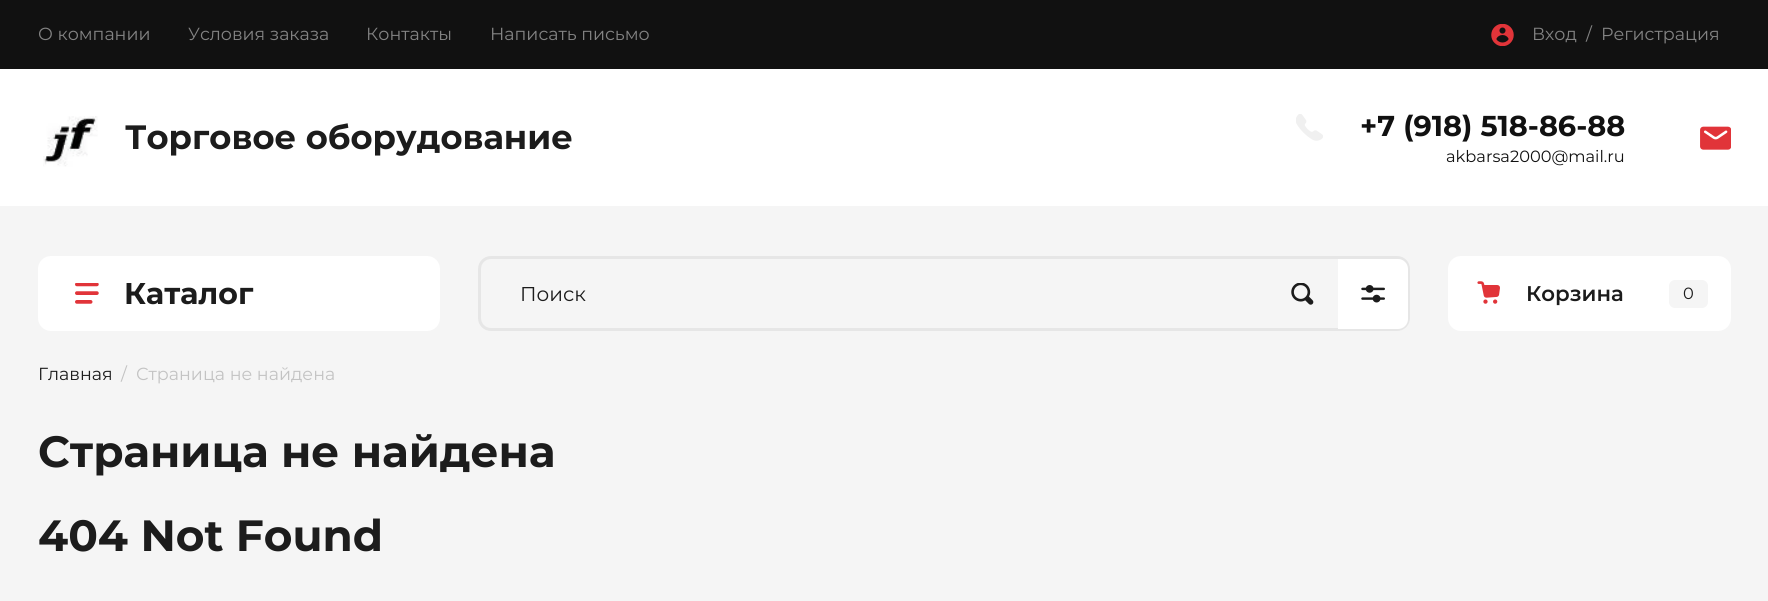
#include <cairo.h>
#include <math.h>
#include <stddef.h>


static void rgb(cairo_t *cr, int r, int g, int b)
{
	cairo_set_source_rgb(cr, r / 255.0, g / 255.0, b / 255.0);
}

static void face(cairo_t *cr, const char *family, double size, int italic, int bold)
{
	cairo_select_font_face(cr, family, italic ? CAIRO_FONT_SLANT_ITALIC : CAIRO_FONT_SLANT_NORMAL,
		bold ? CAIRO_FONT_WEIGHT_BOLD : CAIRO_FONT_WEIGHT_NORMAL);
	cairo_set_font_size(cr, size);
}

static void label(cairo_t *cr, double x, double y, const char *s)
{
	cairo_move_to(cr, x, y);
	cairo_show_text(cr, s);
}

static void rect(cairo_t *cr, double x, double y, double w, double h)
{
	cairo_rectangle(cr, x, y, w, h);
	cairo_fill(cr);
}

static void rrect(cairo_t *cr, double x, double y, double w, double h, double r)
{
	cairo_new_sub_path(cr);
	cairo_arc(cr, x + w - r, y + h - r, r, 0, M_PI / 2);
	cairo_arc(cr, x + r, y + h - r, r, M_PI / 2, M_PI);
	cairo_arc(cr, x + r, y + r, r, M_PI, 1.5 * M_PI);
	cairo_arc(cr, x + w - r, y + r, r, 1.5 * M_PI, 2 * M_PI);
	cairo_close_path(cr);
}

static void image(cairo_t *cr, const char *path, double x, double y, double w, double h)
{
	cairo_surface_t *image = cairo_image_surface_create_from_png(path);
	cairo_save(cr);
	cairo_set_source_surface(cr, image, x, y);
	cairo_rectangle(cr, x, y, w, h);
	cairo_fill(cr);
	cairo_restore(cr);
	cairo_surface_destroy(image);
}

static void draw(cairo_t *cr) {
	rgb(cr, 245, 245, 245);
	cairo_paint(cr);
	rgb(cr, 255, 255, 255);
	rect(cr, 0, 69, 1768, 137);
	rgb(cr, 17, 17, 17);
	rect(cr, 0, 0, 1768, 69);
	face(cr, "Montserrat", 17.5, 0, 0);
	rgb(cr, 131, 131, 131);
	label(cr, 38, 40, "О компании");
	label(cr, 188, 40, "Условия заказа");
	label(cr, 366, 40, "Контакты");
	label(cr, 490, 40, "Написать письмо");
	image(cr, "image0.png", 1491, 24, 23, 22);
	label(cr, 1532, 40, "Вход  /  Регистрация");
	image(cr, "image1.png", 43, 116, 55, 51);
	face(cr, "Montserrat", 33.75, 0, 1);
	rgb(cr, 28, 28, 28);
	label(cr, 125, 149, "Торговое оборудование");
	image(cr, "image2.png", 1296, 114, 27, 27);
	face(cr, "Montserrat", 28.75, 0, 1);
	rgb(cr, 17, 17, 17);
	label(cr, 1360, 136, "+7 (918) 518-86-88");
	face(cr, "Montserrat", 16.25, 0, 0);
	label(cr, 1446, 162, "akbarsa2000@mail.ru");
	image(cr, "image3.png", 1700, 126, 31, 24);
	rgb(cr, 255, 255, 255);
	rrect(cr, 38, 256, 402, 75, 13);
	cairo_fill(cr);
	image(cr, "image4.png", 75, 283, 24, 21);
	face(cr, "Montserrat", 30, 0, 1);
	rgb(cr, 28, 28, 28);
	label(cr, 124, 304, "Каталог");
	rrect(cr, 479.5, 257.5, 929, 72, 11.5);
	rgb(cr, 230, 230, 230);
	cairo_set_line_width(cr, 3);
	cairo_stroke(cr);
	face(cr, "Montserrat", 20, 0, 0);
	rgb(cr, 28, 28, 28);
	label(cr, 520, 301, "Поиск");
	image(cr, "image5.png", 1291, 283, 23, 22);
	rgb(cr, 255, 255, 255);
	cairo_new_path(cr);
	cairo_move_to(cr, 1338, 259);
	cairo_line_to(cr, 1398, 259);
	cairo_curve_to(cr, 1403.5, 259, 1408, 263.5, 1408, 269);
	cairo_line_to(cr, 1408, 319);
	cairo_curve_to(cr, 1408, 324.5, 1403.5, 329, 1398, 329);
	cairo_line_to(cr, 1338, 329);
	cairo_close_path(cr);
	cairo_fill(cr);
	image(cr, "image6.png", 1361, 285, 24, 18);
	rrect(cr, 1448, 256, 283, 75, 13);
	cairo_fill(cr);
	image(cr, "image7.png", 1477, 281, 23, 23);
	face(cr, "Montserrat SemiBold", 21.25, 0, 0);
	rgb(cr, 28, 28, 28);
	label(cr, 1526, 301, "Корзина");
	rgb(cr, 245, 245, 245);
	rrect(cr, 1669, 280, 39, 28, 6);
	cairo_fill(cr);
	face(cr, "Montserrat", 16.25, 0, 0);
	rgb(cr, 28, 28, 28);
	label(cr, 1683, 299, "0");
	face(cr, "Montserrat", 17.5, 0, 0);
	label(cr, 38, 380, "Главная");
	rgb(cr, 195, 195, 195);
	label(cr, 121, 380, "/  Страница не найдена");
	face(cr, "Montserrat", 43.75, 0, 1);
	rgb(cr, 28, 28, 28);
	label(cr, 38, 467, "Страница не найдена");
	label(cr, 38, 551, "404 Not Found");
}

int main(void) {
	cairo_surface_t *surface = cairo_image_surface_create(CAIRO_FORMAT_RGB24, 1768, 601);
	cairo_t *cr = cairo_create(surface);
	cairo_font_options_t *options = cairo_font_options_create();
	cairo_font_options_set_hint_metrics(options, CAIRO_HINT_METRICS_OFF);
	cairo_font_options_set_hint_style(options, CAIRO_HINT_STYLE_NONE);
	cairo_set_font_options(cr, options);
	cairo_set_miter_limit(cr, 4);
	draw(cr);
	cairo_surface_write_to_png(surface, "render.png");
	cairo_font_options_destroy(options);
	cairo_destroy(cr);
	cairo_surface_destroy(surface);
	return 0;
}
